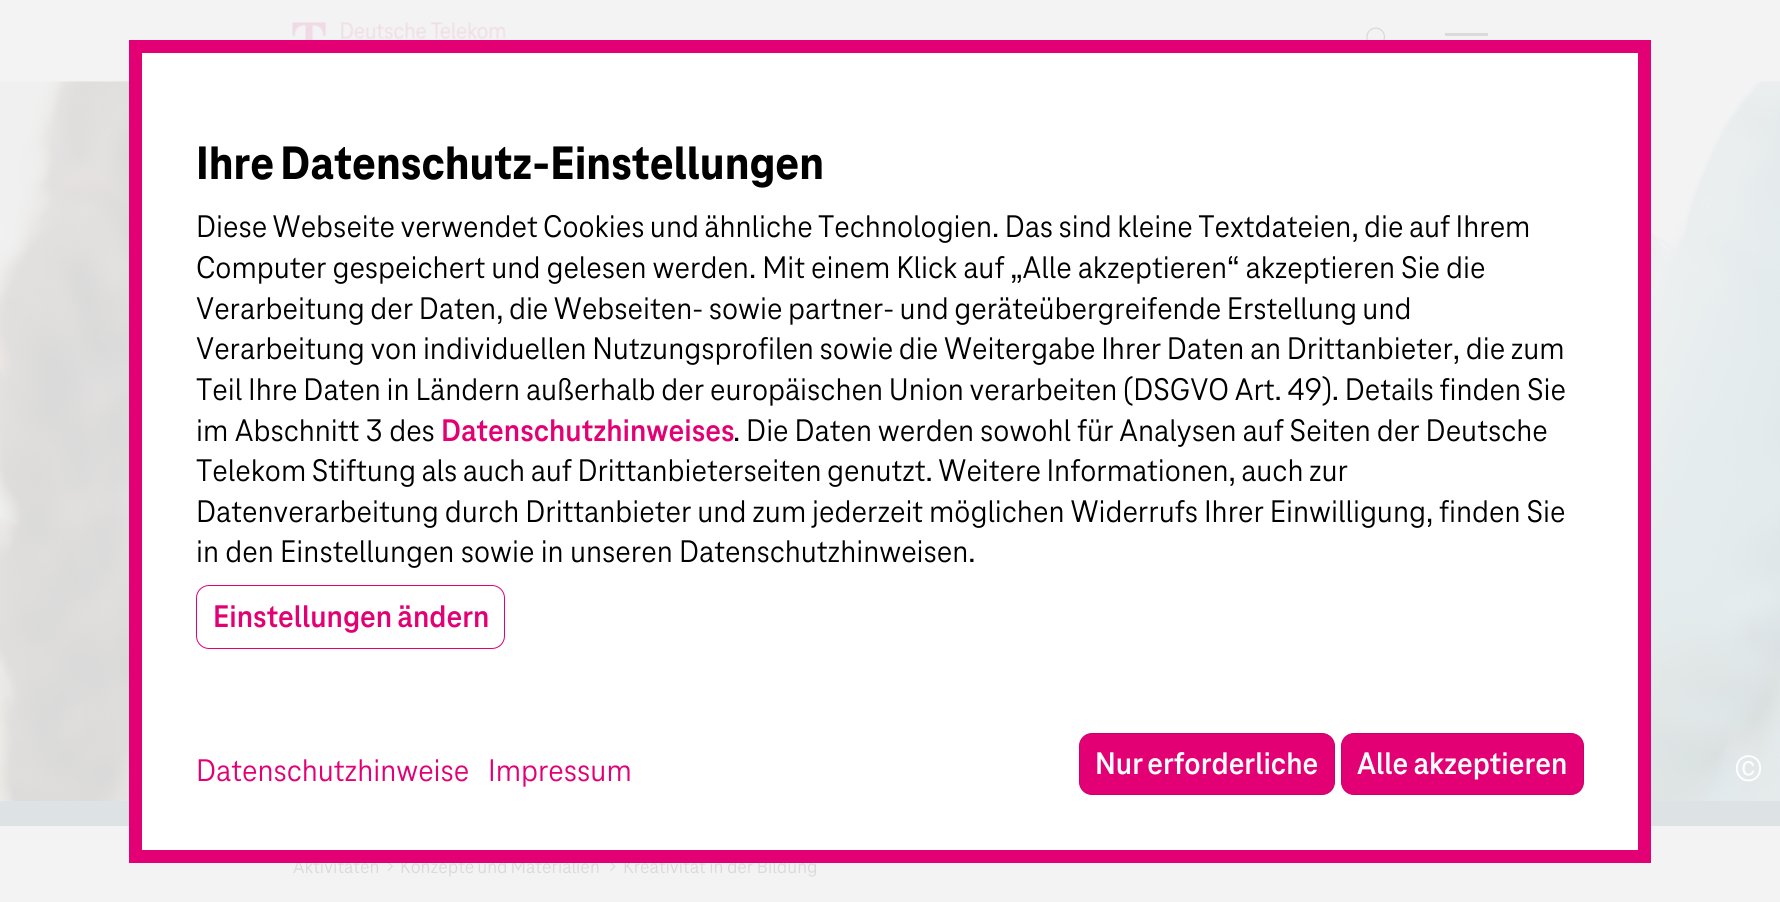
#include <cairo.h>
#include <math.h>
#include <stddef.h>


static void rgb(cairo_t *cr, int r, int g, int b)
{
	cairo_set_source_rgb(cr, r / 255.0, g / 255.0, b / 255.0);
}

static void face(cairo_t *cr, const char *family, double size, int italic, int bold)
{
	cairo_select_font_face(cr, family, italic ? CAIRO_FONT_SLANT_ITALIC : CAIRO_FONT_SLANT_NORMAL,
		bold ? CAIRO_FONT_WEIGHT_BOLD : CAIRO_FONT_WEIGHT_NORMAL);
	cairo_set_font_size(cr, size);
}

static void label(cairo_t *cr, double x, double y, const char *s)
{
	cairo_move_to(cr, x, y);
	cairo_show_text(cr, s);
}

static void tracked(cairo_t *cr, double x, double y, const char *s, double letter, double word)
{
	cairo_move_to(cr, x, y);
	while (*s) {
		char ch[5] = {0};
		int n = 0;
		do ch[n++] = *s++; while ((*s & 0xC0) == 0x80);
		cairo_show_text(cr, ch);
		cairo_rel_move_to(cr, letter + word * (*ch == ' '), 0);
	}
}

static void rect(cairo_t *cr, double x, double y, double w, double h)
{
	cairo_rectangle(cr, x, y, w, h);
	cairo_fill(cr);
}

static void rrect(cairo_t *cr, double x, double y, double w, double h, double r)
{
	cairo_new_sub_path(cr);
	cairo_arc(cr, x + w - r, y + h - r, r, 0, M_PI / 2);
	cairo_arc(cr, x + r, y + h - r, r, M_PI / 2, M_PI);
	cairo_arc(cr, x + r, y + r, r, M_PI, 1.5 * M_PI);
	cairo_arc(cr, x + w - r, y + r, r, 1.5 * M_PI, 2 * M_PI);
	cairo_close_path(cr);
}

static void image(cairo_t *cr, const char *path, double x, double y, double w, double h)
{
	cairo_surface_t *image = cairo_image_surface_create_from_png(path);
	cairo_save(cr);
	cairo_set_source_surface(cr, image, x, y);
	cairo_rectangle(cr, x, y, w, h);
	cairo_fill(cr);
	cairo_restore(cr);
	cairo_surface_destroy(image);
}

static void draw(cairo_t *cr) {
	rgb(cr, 243, 243, 243);
	cairo_paint(cr);
	rgb(cr, 221, 226, 228);
	rect(cr, 0, 801, 1780, 25);
	image(cr, "image2.png", 0, 81, 1780, 721);
	face(cr, "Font", 20, 0, 0);
	rgb(cr, 218, 218, 218);
	label(cr, 293, 873, "Aktivitäten");
	tracked(cr, 400, 873, "Konzepte und Materialien", 0, -1);
	tracked(cr, 623, 873, "Kreativität in der Bildung", 0, -0.5);
	rgb(cr, 255, 255, 255);
	cairo_rectangle(cr, 135.5, 46.5, 1509, 810);
	cairo_fill_preserve(cr);
	rgb(cr, 226, 0, 116);
	cairo_set_line_width(cr, 13);
	cairo_stroke(cr);
	face(cr, "Font ExtraBold", 48.75, 0, 0);
	rgb(cr, 0, 0, 0);
	tracked(cr, 196, 179, "Ihre Datenschutz-Einstellungen", 0, -3);
	face(cr, "Font", 32.5, 0, 0);
	tracked(cr, 196, 237, "Diese Webseite verwendet Cookies und ähnliche Technologien. Das sind kleine Textdateien, die auf Ihrem", 0, -1.1);
	tracked(cr, 196, 278, "Computer gespeichert und gelesen werden. Mit einem Klick auf „Alle akzeptieren“ akzeptieren Sie die", 0, -0.5);
	tracked(cr, 196, 319, "Verarbeitung der Daten, die Webseiten- sowie partner- und geräteübergreifende Erstellung und", 0, -1);
	tracked(cr, 196, 359, "Verarbeitung von individuellen Nutzungsprofilen sowie die Weitergabe Ihrer Daten an Drittanbieter, die zum", 0, -0.9);
	tracked(cr, 196, 400, "Teil Ihre Daten in Ländern außerhalb der europäischen Union verarbeiten (DSGVO Art. 49). Details finden Sie", 0, -0.75);
	label(cr, 196, 441, "im Abschnitt 3 des");
	face(cr, "Font", 32.5, 0, 1);
	rgb(cr, 226, 0, 116);
	label(cr, 441, 441, "Datenschutzhinweises");
	face(cr, "Font", 32.5, 0, 0);
	rgb(cr, 0, 0, 0);
	tracked(cr, 733, 441, ". Die Daten werden sowohl für Analysen auf Seiten der Deutsche", 0, -0.6);
	tracked(cr, 196, 481, "Telekom Stiftung als auch auf Drittanbieterseiten genutzt. Weitere Informationen, auch zur", 0, -1);
	tracked(cr, 196, 522, "Datenverarbeitung durch Drittanbieter und zum jederzeit möglichen Widerrufs Ihrer Einwilligung, finden Sie", 0, -0.6);
	tracked(cr, 196, 562, "in den Einstellungen sowie in unseren Datenschutzhinweisen.", 0, -0.25);
	rrect(cr, 196.5, 585.5, 308, 63, 12.5);
	rgb(cr, 226, 0, 116);
	cairo_set_line_width(cr, 1);
	cairo_stroke(cr);
	face(cr, "Font", 32.5, 0, 1);
	tracked(cr, 213, 627, "Einstellungen ändern", 0, -1);
	face(cr, "Font", 32.5, 0, 0);
	label(cr, 196, 781, "Datenschutzhinweise");
	label(cr, 488, 781, "Impressum");
	rrect(cr, 1079.5, 733.5, 255, 61, 12.5);
	cairo_fill_preserve(cr);
	rgb(cr, 201, 0, 103);
	cairo_stroke(cr);
	face(cr, "Font", 32.5, 0, 1);
	rgb(cr, 255, 255, 255);
	tracked(cr, 1095, 774, "Nur erforderliche", 0, -2);
	rgb(cr, 226, 0, 116);
	rrect(cr, 1341.5, 733.5, 242, 61, 12.5);
	cairo_fill_preserve(cr);
	rgb(cr, 201, 0, 103);
	cairo_stroke(cr);
	rgb(cr, 255, 255, 255);
	tracked(cr, 1357, 774, "Alle akzeptieren", 0, -1);
	image(cr, "image0.png", 292, 22, 214, 18);
	image(cr, "image1.png", 1366, 27, 20, 13);
	rgb(cr, 218, 218, 218);
	rect(cr, 1445, 33, 43, 3);
	face(cr, "Font", 38, 0, 0);
	rgb(cr, 255, 255, 255);
	label(cr, 1734, 781, "©");
	image(cr, "image3.png", 387, 863, 6, 9);
	image(cr, "image4.png", 610, 863, 6, 9);
}

int main(void) {
	cairo_surface_t *surface = cairo_image_surface_create(CAIRO_FORMAT_RGB24, 1780, 902);
	cairo_t *cr = cairo_create(surface);
	cairo_font_options_t *options = cairo_font_options_create();
	cairo_font_options_set_hint_metrics(options, CAIRO_HINT_METRICS_OFF);
	cairo_font_options_set_hint_style(options, CAIRO_HINT_STYLE_NONE);
	cairo_set_font_options(cr, options);
	cairo_set_miter_limit(cr, 4);
	draw(cr);
	cairo_surface_write_to_png(surface, "render.png");
	cairo_font_options_destroy(options);
	cairo_destroy(cr);
	cairo_surface_destroy(surface);
	return 0;
}
